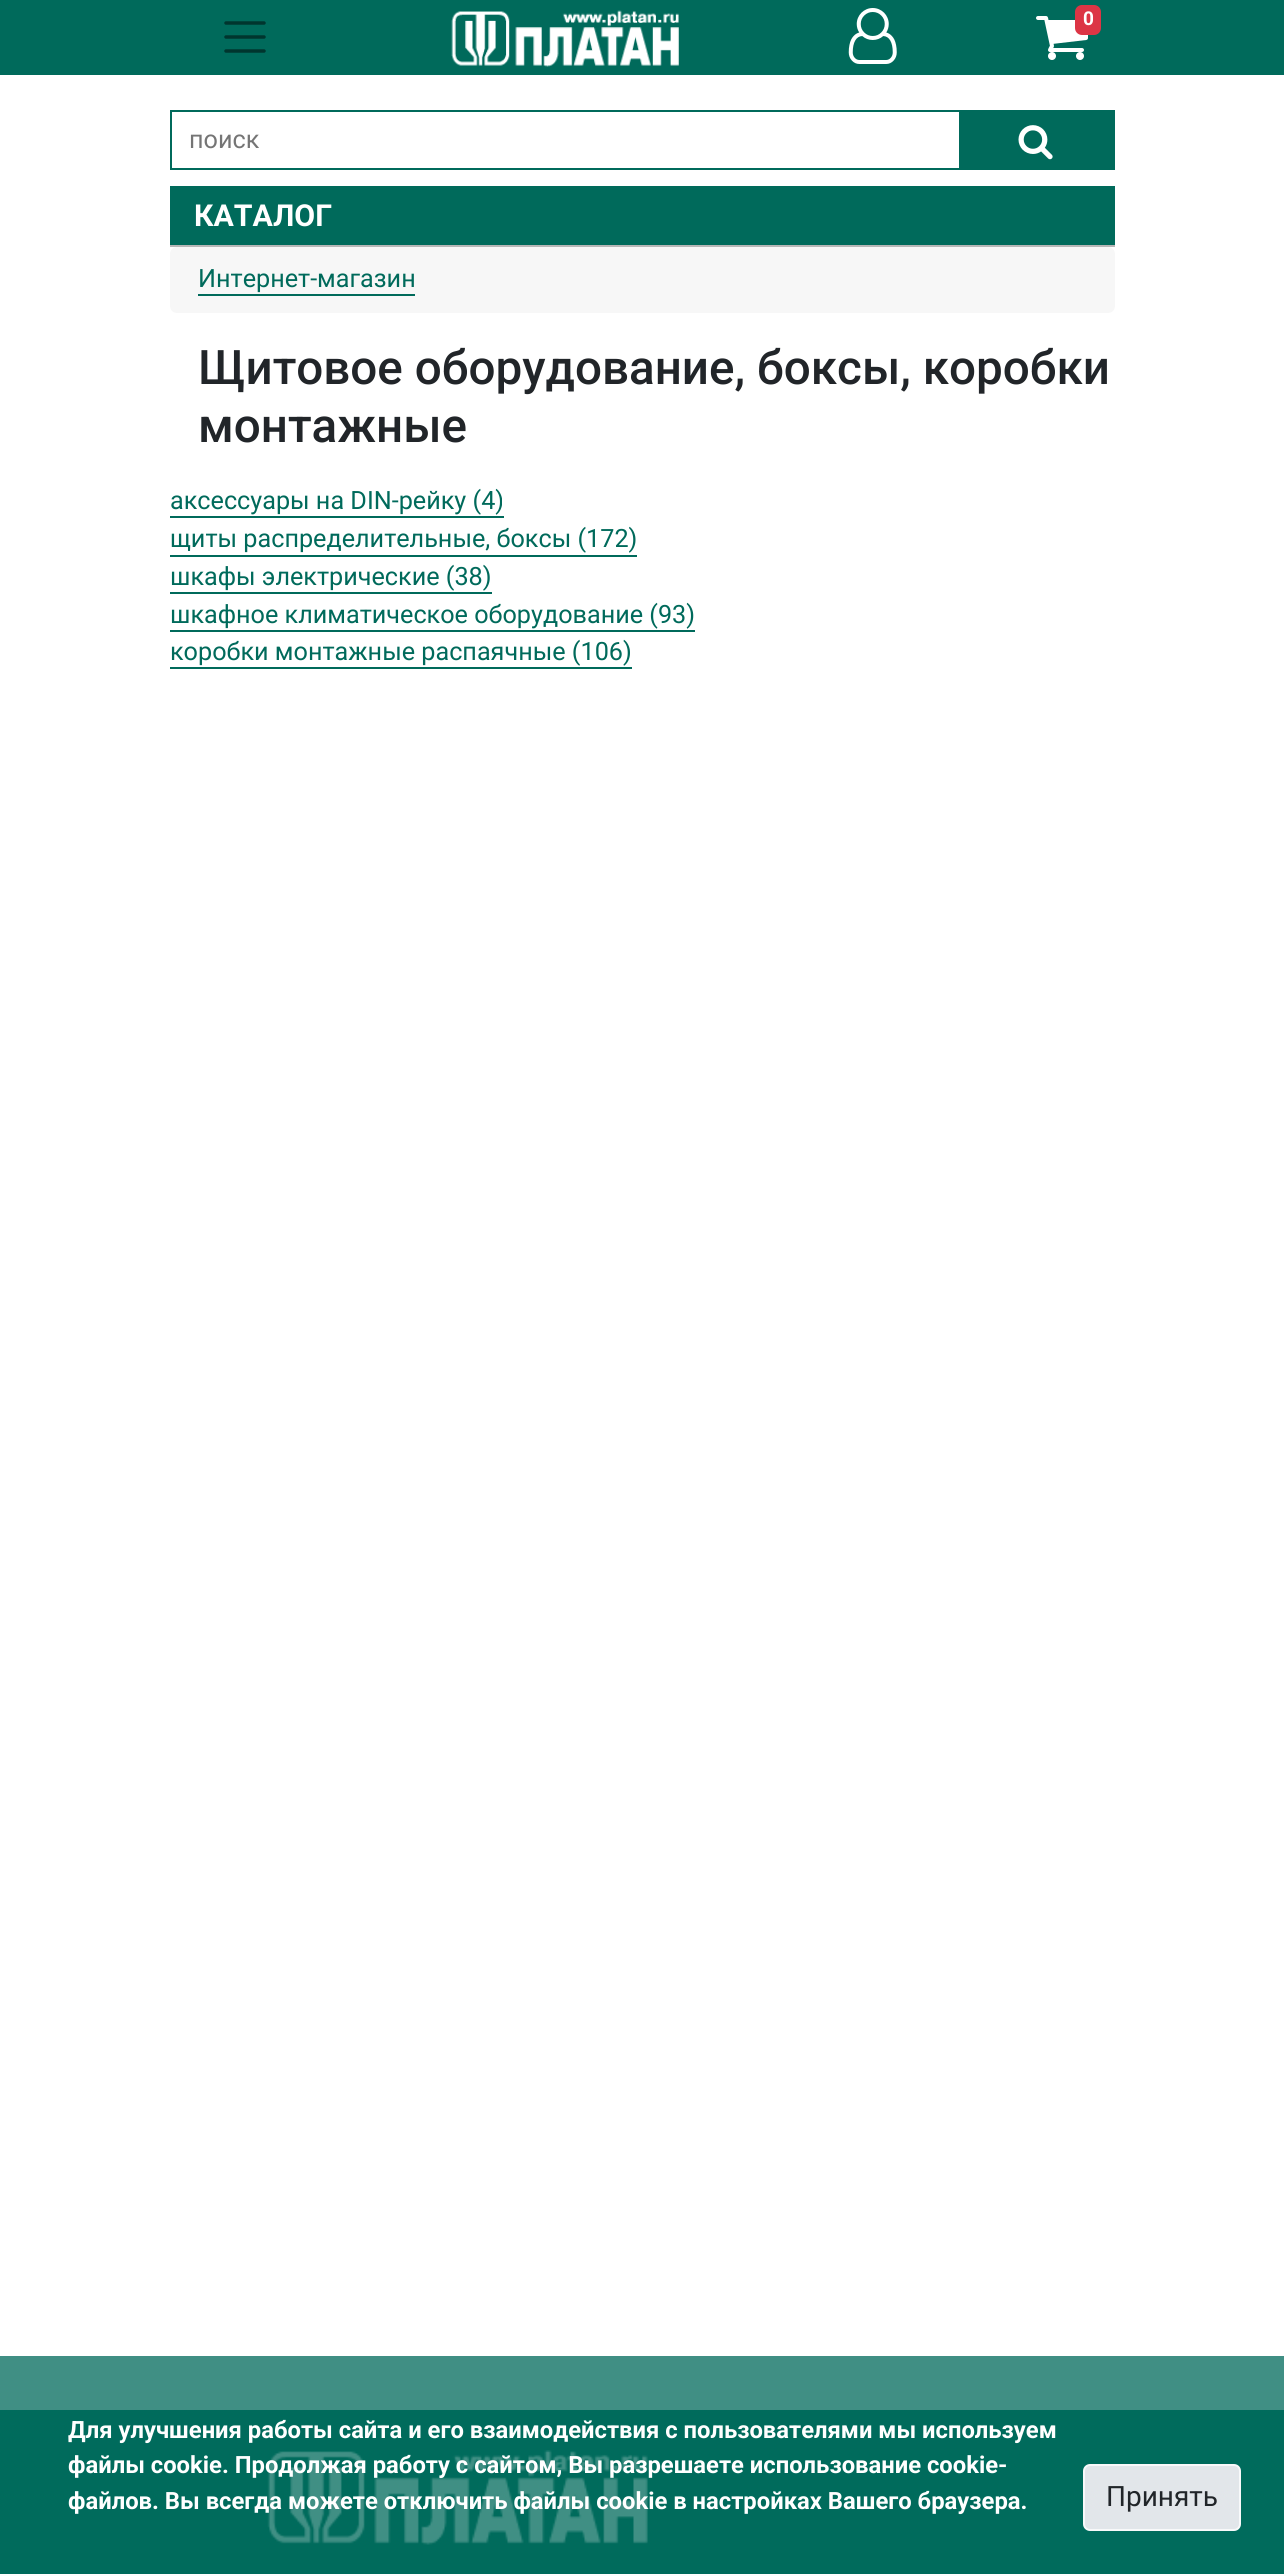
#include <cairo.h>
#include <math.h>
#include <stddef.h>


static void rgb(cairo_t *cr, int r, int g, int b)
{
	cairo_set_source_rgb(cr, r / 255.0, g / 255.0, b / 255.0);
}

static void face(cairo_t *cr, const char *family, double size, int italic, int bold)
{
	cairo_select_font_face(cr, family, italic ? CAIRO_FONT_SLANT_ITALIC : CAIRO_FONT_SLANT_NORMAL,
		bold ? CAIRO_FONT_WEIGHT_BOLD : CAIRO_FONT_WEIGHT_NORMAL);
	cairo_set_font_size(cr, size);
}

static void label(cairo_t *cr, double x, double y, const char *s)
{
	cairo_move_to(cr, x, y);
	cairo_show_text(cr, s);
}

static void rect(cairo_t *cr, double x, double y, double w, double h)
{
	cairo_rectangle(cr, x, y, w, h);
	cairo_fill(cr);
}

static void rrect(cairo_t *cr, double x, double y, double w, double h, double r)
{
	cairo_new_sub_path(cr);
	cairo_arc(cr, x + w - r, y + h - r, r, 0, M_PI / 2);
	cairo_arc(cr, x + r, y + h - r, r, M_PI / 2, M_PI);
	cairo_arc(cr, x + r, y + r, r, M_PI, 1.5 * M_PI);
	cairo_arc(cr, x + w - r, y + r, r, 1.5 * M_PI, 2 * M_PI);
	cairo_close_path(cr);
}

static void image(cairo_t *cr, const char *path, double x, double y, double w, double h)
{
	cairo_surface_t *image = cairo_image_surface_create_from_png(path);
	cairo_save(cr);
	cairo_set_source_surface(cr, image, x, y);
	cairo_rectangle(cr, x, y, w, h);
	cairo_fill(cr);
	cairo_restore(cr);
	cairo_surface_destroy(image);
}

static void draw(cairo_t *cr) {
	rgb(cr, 255, 255, 255);
	cairo_paint(cr);
	rgb(cr, 64, 143, 132);
	rect(cr, 0, 2356, 1284, 54);
	rgb(cr, 0, 106, 91);
	rect(cr, 0, 0, 1284, 75);
	image(cr, "image0.png", 451, 10, 228, 57);
	image(cr, "image1.png", 848, 8, 49, 56);
	image(cr, "image2.png", 1036, 16, 52, 44);
	rgb(cr, 220, 53, 69);
	rrect(cr, 1075, 5, 26, 30, 7);
	cairo_fill(cr);
	face(cr, "Roboto", 19, 0, 1);
	rgb(cr, 255, 255, 255);
	label(cr, 1083, 25, "0");
	cairo_new_path(cr);
	cairo_move_to(cr, 226, 23);
	cairo_line_to(cr, 264, 23);
	cairo_move_to(cr, 226, 37);
	cairo_line_to(cr, 264, 37);
	cairo_move_to(cr, 226, 51);
	cairo_line_to(cr, 264, 51);
	rgb(cr, 0, 53, 46);
	cairo_set_line_width(cr, 3.5);
	cairo_set_line_cap(cr, CAIRO_LINE_CAP_ROUND);
	cairo_stroke(cr);
	cairo_rectangle(cr, 171, 111, 943, 58);
	rgb(cr, 0, 106, 91);
	cairo_set_line_width(cr, 2);
	cairo_set_line_cap(cr, CAIRO_LINE_CAP_BUTT);
	cairo_stroke(cr);
	face(cr, "Roboto", 25.2, 0, 0);
	rgb(cr, 117, 117, 117);
	label(cr, 189, 148, "поиск");
	rgb(cr, 0, 106, 91);
	rect(cr, 959, 112, 154, 56);
	image(cr, "image3.png", 1018, 125, 35, 35);
	rect(cr, 170, 186, 945, 59);
	rgb(cr, 183, 183, 183);
	rect(cr, 170, 245, 945, 2);
	face(cr, "Roboto", 30.25, 0, 1);
	rgb(cr, 255, 255, 255);
	label(cr, 194, 226, "КАТАЛОГ");
	rgb(cr, 247, 247, 247);
	rrect(cr, 170, 247, 945, 66, 7);
	cairo_fill(cr);
	face(cr, "Roboto", 25.2, 0, 0);
	rgb(cr, 0, 106, 91);
	label(cr, 198, 287, "Интернет-магазин");
	rect(cr, 198, 294, 217, 2);
	face(cr, "Roboto Medium", 47.6, 0, 0);
	rgb(cr, 33, 37, 41);
	label(cr, 198, 384, "Щитовое оборудование, боксы, коробки");
	label(cr, 198, 442, "монтажные");
	face(cr, "Roboto", 25.2, 0, 0);
	rgb(cr, 0, 106, 91);
	label(cr, 170, 509, "аксессуары на DIN-рейку (4)");
	rect(cr, 170, 516, 334, 2);
	label(cr, 170, 547, "щиты распределительные, боксы (172)");
	rect(cr, 170, 555, 467, 2);
	label(cr, 170, 585, "шкафы электрические (38)");
	rect(cr, 170, 592, 322, 2);
	label(cr, 170, 623, "шкафное климатическое оборудование (93)");
	rect(cr, 170, 630, 525, 2);
	label(cr, 170, 660, "коробки монтажные распаячные (106)");
	rect(cr, 170, 667, 462, 2);
	rgb(cr, 0, 107, 92);
	rect(cr, 0, 2410, 1284, 164);
	face(cr, "Roboto", 23.8, 0, 1);
	rgb(cr, 255, 255, 255);
	label(cr, 68, 2438, "Для улучшения работы сайта и его взаимодействия с пользователями мы используем");
	image(cr, "image4.png", 267, 2450, 381, 95);
	label(cr, 68, 2473, "файлы cookie. Продолжая работу с сайтом, Вы разрешаете использование cookie-");
	label(cr, 68, 2509, "файлов. Вы всегда можете отключить файлы cookie в настройках Вашего браузера.");
	rgb(cr, 226, 230, 234);
	rrect(cr, 1084, 2465, 156, 65, 6);
	cairo_fill_preserve(cr);
	rgb(cr, 248, 249, 250);
	cairo_stroke(cr);
	face(cr, "Roboto", 28, 0, 0);
	rgb(cr, 33, 37, 41);
	label(cr, 1106, 2506, "Принять");
}

int main(void) {
	cairo_surface_t *surface = cairo_image_surface_create(CAIRO_FORMAT_RGB24, 1284, 2574);
	cairo_t *cr = cairo_create(surface);
	cairo_font_options_t *options = cairo_font_options_create();
	cairo_font_options_set_hint_metrics(options, CAIRO_HINT_METRICS_OFF);
	cairo_font_options_set_hint_style(options, CAIRO_HINT_STYLE_NONE);
	cairo_set_font_options(cr, options);
	cairo_set_miter_limit(cr, 4);
	draw(cr);
	cairo_surface_write_to_png(surface, "render.png");
	cairo_font_options_destroy(options);
	cairo_destroy(cr);
	cairo_surface_destroy(surface);
	return 0;
}
